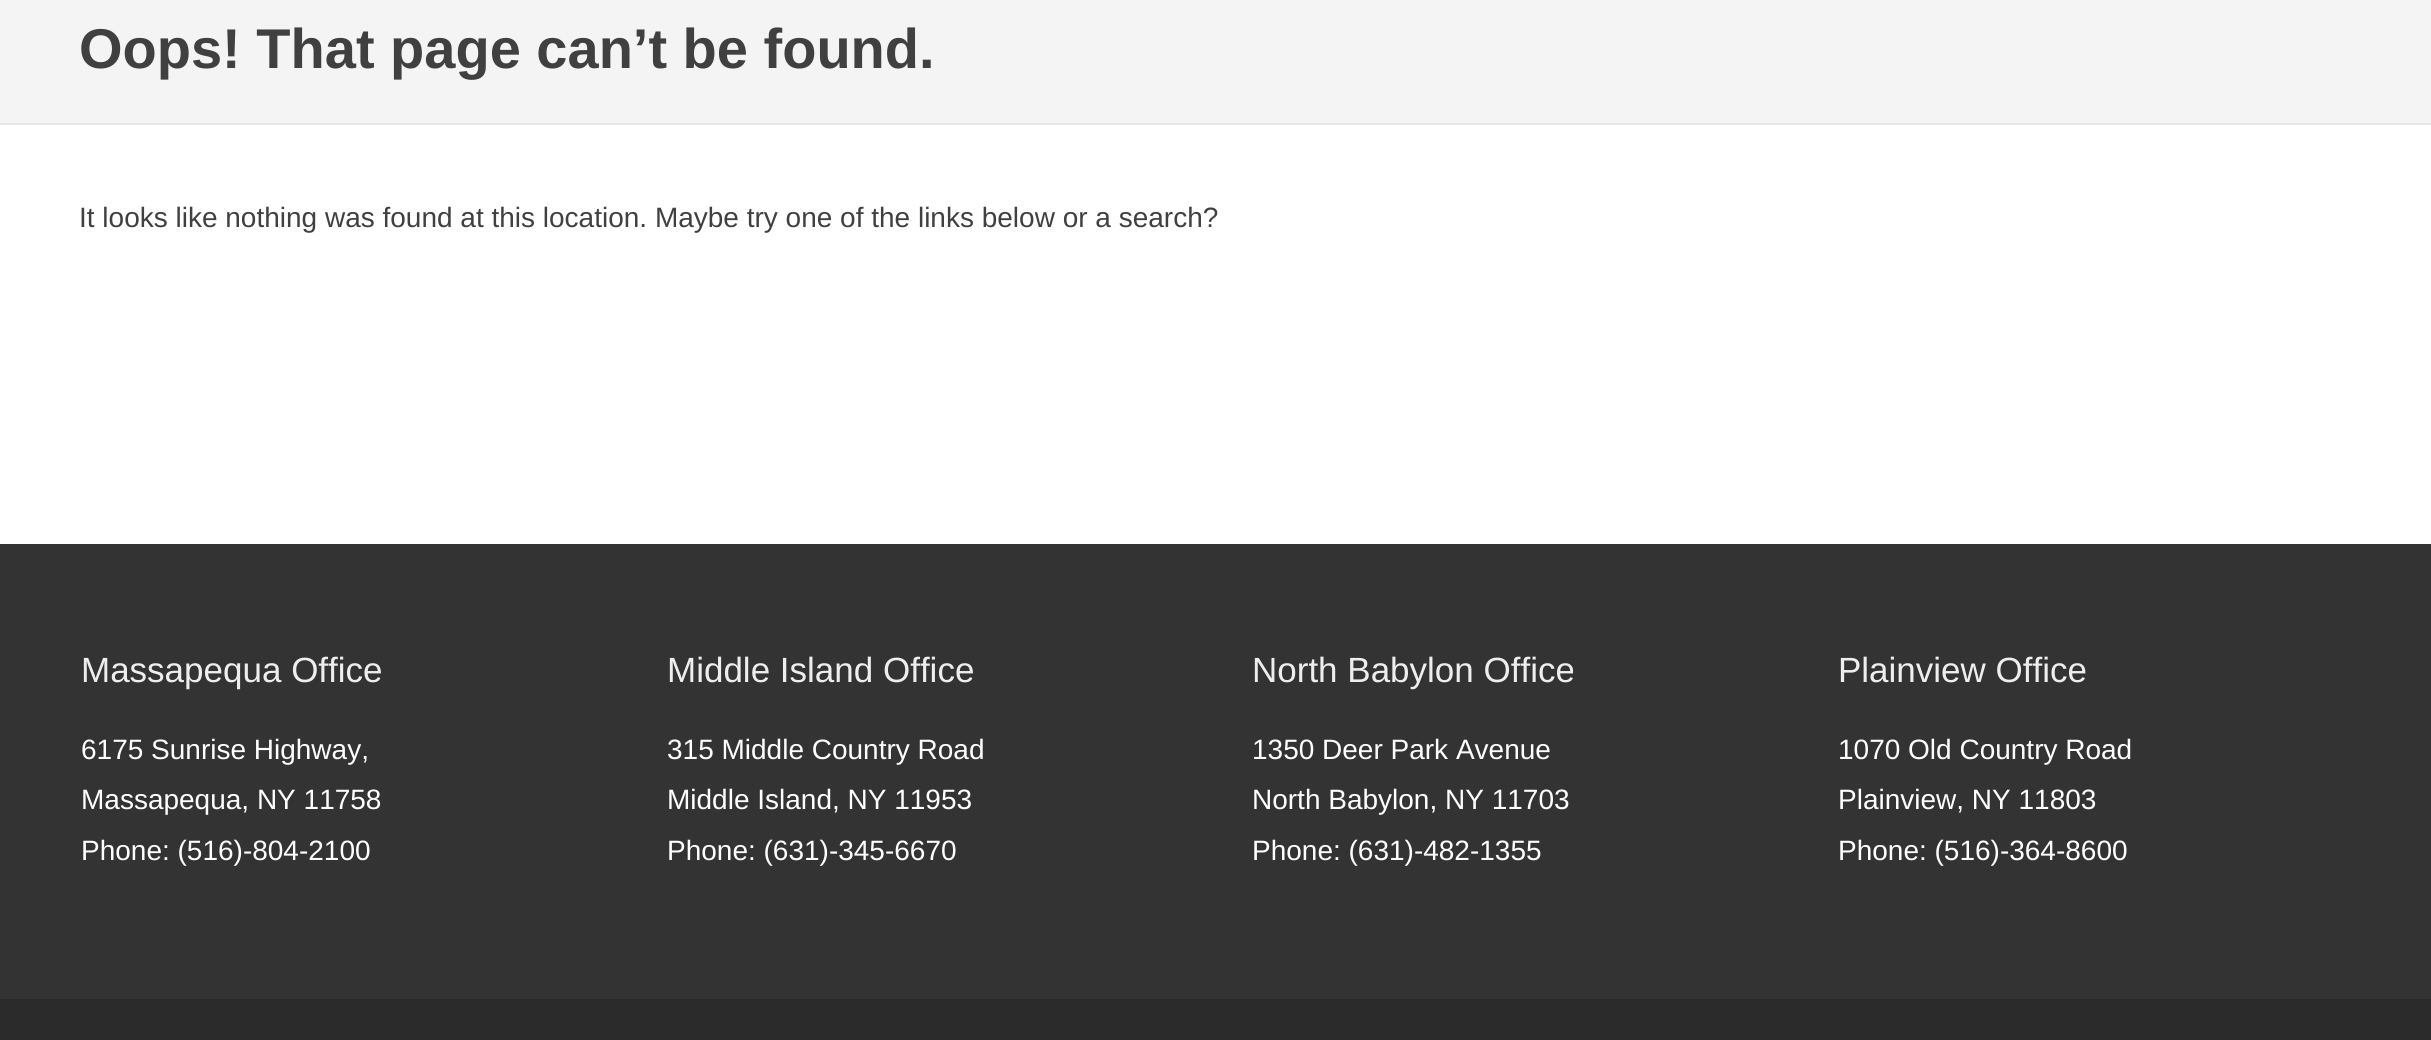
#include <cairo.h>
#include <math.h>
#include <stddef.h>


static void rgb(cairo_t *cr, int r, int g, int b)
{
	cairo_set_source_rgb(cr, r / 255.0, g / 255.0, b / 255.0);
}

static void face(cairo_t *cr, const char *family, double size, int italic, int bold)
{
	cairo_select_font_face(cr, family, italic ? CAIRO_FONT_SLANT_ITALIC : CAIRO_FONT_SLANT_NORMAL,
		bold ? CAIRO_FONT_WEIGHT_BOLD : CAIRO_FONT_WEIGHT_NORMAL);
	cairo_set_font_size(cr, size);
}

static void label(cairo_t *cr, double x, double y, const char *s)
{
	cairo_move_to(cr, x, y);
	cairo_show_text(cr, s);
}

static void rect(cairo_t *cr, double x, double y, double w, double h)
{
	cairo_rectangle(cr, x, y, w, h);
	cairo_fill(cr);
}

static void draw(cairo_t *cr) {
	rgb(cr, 255, 255, 255);
	cairo_paint(cr);
	rgb(cr, 245, 244, 244);
	rect(cr, 0, 0, 2431, 123);
	rgb(cr, 231, 231, 231);
	rect(cr, 0, 123, 2431, 2);
	face(cr, "Liberation Sans", 56, 0, 1);
	rgb(cr, 64, 64, 64);
	label(cr, 79, 68, "Oops! That page can’t be found.");
	face(cr, "Liberation Sans", 28, 0, 0);
	label(cr, 79, 227, "It looks like nothing was found at this location. Maybe try one of the links below or a search?");
	rgb(cr, 51, 51, 51);
	rect(cr, 0, 544, 2431, 455);
	face(cr, "Liberation Sans", 35, 0, 0);
	rgb(cr, 238, 238, 238);
	label(cr, 81, 682, "Massapequa Office");
	face(cr, "Liberation Sans", 28, 0, 0);
	rgb(cr, 255, 255, 255);
	label(cr, 81, 759, "6175 Sunrise Highway,");
	label(cr, 81, 809, "Massapequa, NY 11758");
	label(cr, 81, 860, "Phone: (516)-804-2100");
	face(cr, "Liberation Sans", 35, 0, 0);
	rgb(cr, 238, 238, 238);
	label(cr, 667, 682, "Middle Island Office");
	face(cr, "Liberation Sans", 28, 0, 0);
	rgb(cr, 255, 255, 255);
	label(cr, 667, 759, "315 Middle Country Road");
	label(cr, 667, 809, "Middle Island, NY 11953");
	label(cr, 667, 860, "Phone: (631)-345-6670");
	face(cr, "Liberation Sans", 35, 0, 0);
	rgb(cr, 238, 238, 238);
	label(cr, 1252, 682, "North Babylon Office");
	face(cr, "Liberation Sans", 28, 0, 0);
	rgb(cr, 255, 255, 255);
	label(cr, 1252, 759, "1350 Deer Park Avenue");
	label(cr, 1252, 809, "North Babylon, NY 11703");
	label(cr, 1252, 860, "Phone: (631)-482-1355");
	face(cr, "Liberation Sans", 35, 0, 0);
	rgb(cr, 238, 238, 238);
	label(cr, 1838, 682, "Plainview Office");
	face(cr, "Liberation Sans", 28, 0, 0);
	rgb(cr, 255, 255, 255);
	label(cr, 1838, 759, "1070 Old Country Road");
	label(cr, 1838, 809, "Plainview, NY 11803");
	label(cr, 1838, 860, "Phone: (516)-364-8600");
	rgb(cr, 43, 43, 43);
	rect(cr, 0, 999, 2431, 41);
}

int main(void) {
	cairo_surface_t *surface = cairo_image_surface_create(CAIRO_FORMAT_RGB24, 2431, 1040);
	cairo_t *cr = cairo_create(surface);
	cairo_font_options_t *options = cairo_font_options_create();
	cairo_font_options_set_hint_metrics(options, CAIRO_HINT_METRICS_OFF);
	cairo_font_options_set_hint_style(options, CAIRO_HINT_STYLE_NONE);
	cairo_set_font_options(cr, options);
	cairo_set_miter_limit(cr, 4);
	draw(cr);
	cairo_surface_write_to_png(surface, "render.png");
	cairo_font_options_destroy(options);
	cairo_destroy(cr);
	cairo_surface_destroy(surface);
	return 0;
}
